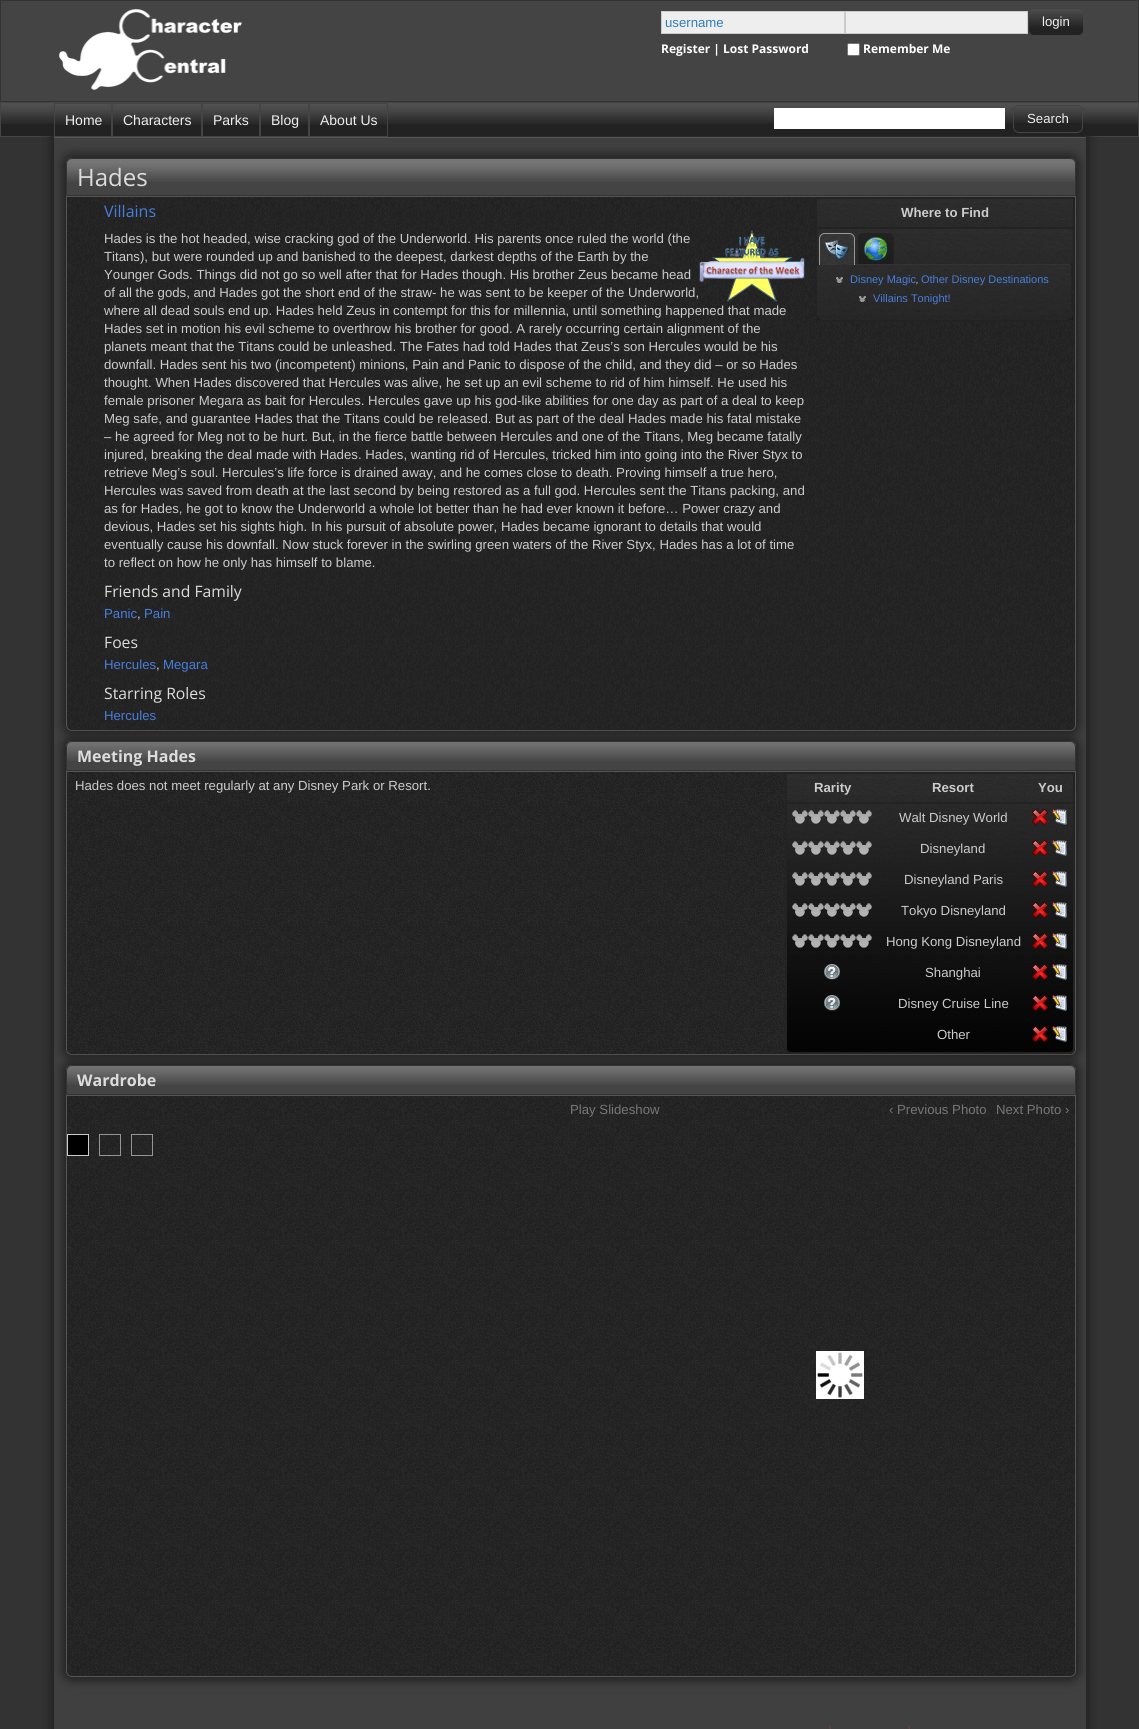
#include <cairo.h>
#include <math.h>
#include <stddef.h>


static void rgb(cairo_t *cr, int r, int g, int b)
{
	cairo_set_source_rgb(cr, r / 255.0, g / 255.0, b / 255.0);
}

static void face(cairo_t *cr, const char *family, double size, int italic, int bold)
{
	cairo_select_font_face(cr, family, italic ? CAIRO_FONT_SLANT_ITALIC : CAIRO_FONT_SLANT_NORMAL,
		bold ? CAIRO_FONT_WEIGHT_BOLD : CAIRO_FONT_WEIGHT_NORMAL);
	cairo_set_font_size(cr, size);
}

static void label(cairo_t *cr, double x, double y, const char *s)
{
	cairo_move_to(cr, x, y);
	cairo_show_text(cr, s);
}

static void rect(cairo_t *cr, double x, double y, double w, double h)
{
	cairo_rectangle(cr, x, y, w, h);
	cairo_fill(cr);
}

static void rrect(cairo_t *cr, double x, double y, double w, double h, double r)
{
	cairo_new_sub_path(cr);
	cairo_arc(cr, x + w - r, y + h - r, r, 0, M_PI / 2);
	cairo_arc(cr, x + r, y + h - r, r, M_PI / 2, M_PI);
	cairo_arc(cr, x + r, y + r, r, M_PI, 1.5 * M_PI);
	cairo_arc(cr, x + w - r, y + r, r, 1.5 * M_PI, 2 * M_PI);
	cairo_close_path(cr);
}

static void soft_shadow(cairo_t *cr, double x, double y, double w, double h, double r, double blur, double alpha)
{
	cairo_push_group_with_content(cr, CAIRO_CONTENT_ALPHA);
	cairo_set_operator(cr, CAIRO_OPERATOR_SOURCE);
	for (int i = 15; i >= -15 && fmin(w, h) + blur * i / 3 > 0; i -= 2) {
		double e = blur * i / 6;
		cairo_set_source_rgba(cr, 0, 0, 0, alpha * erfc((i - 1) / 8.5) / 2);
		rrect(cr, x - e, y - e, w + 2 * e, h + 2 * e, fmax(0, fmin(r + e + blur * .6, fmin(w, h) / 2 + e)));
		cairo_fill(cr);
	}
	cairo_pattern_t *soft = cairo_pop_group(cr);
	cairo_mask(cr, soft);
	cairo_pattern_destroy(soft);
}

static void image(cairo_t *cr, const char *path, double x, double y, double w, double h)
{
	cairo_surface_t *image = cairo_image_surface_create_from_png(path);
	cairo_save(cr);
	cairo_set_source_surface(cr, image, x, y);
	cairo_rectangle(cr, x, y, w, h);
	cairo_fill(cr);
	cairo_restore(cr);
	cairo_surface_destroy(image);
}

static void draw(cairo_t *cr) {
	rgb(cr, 51, 51, 51);
	cairo_paint(cr);
	rgb(cr, 68, 68, 68);
	rect(cr, 1, 1, 1137, 100);
	image(cr, "image0.png", 59, 9, 183, 81);
	rgb(cr, 238, 238, 238);
	cairo_rectangle(cr, 661.5, 11.5, 183, 22);
	cairo_fill_preserve(cr);
	rgb(cr, 204, 204, 204);
	cairo_set_line_width(cr, 1);
	cairo_stroke(cr);
	face(cr, "Liberation Sans", 13.2, 0, 0);
	rgb(cr, 46, 125, 178);
	label(cr, 665, 27, "username");
	rgb(cr, 238, 238, 238);
	cairo_rectangle(cr, 845.5, 11.5, 182, 22);
	cairo_fill_preserve(cr);
	rgb(cr, 204, 204, 204);
	cairo_stroke(cr);
	image(cr, "image1.png", 1028, 8, 56, 28);
	rrect(cr, 1028.5, 8.5, 55, 27, 5.5);
	rgb(cr, 68, 68, 68);
	cairo_stroke(cr);
	rgb(cr, 238, 238, 238);
	label(cr, 1042, 26, "login");
	face(cr, "Open Sans", 12, 0, 1);
	rgb(cr, 255, 255, 255);
	label(cr, 661, 53, "Register | Lost Password");
	rrect(cr, 847.5, 43.5, 12, 12, 1.5);
	cairo_fill_preserve(cr);
	rgb(cr, 118, 118, 118);
	cairo_stroke(cr);
	rgb(cr, 255, 255, 255);
	label(cr, 863, 53, "Remember Me");
	rgb(cr, 34, 34, 34);
	rect(cr, 1, 124, 1137, 12);
	image(cr, "image2.png", 1, 103, 1137, 21);
	cairo_rectangle(cr, 0.5, 102.5, 1138, 34);
	rgb(cr, 68, 68, 68);
	cairo_stroke(cr);
	rgb(cr, 34, 34, 34);
	soft_shadow(cr, 50, 133, 1040, 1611, 0, 5, 1);
	image(cr, "image3.png", 55, 104, 56, 21);
	cairo_rectangle(cr, 54.5, 103.5, 57, 33);
	rgb(cr, 68, 68, 68);
	cairo_stroke(cr);
	face(cr, "Liberation Sans", 14, 0, 0);
	rgb(cr, 238, 238, 238);
	label(cr, 65, 125, "Home");
	image(cr, "image4.png", 113, 104, 88, 21);
	cairo_rectangle(cr, 112.5, 103.5, 89, 33);
	rgb(cr, 68, 68, 68);
	cairo_stroke(cr);
	rgb(cr, 238, 238, 238);
	label(cr, 123, 125, "Characters");
	image(cr, "image3.png", 203, 104, 56, 21);
	cairo_rectangle(cr, 202.5, 103.5, 57, 33);
	rgb(cr, 68, 68, 68);
	cairo_stroke(cr);
	rgb(cr, 238, 238, 238);
	label(cr, 213, 125, "Parks");
	image(cr, "image5.png", 261, 104, 47, 21);
	cairo_rectangle(cr, 260.5, 103.5, 48, 33);
	rgb(cr, 68, 68, 68);
	cairo_stroke(cr);
	rgb(cr, 238, 238, 238);
	label(cr, 271, 125, "Blog");
	image(cr, "image6.png", 310, 104, 77, 21);
	cairo_rectangle(cr, 309.5, 103.5, 78, 33);
	rgb(cr, 68, 68, 68);
	cairo_stroke(cr);
	rgb(cr, 238, 238, 238);
	label(cr, 320, 125, "About Us");
	rgb(cr, 64, 64, 64);
	rect(cr, 54, 138, 1032, 1591);
	rgb(cr, 85, 85, 85);
	rect(cr, 54, 137, 1032, 1);
	rgb(cr, 34, 34, 34);
	soft_shadow(cr, 62, 154, 1018, 581, 10, 5, 1);
	rgb(cr, 68, 68, 68);
	cairo_new_path(cr);
	cairo_move_to(cr, 72, 158);
	cairo_line_to(cr, 1070, 158);
	cairo_curve_to(cr, 1073.5, 158, 1076, 160.5, 1076, 164);
	cairo_line_to(cr, 1076, 196);
	cairo_line_to(cr, 66, 196);
	cairo_line_to(cr, 66, 164);
	cairo_curve_to(cr, 66, 160.5, 68.5, 158, 72, 158);
	cairo_close_path(cr);
	cairo_fill(cr);
	image(cr, "image7.png", 66, 158, 1010, 24);
	cairo_new_path(cr);
	cairo_move_to(cr, 72, 158.5);
	cairo_line_to(cr, 1070, 158.5);
	cairo_curve_to(cr, 1073, 158.5, 1075.5, 161, 1075.5, 164);
	cairo_line_to(cr, 1075.5, 195.5);
	cairo_line_to(cr, 66.5, 195.5);
	cairo_line_to(cr, 66.5, 164);
	cairo_curve_to(cr, 66.5, 161, 69, 158.5, 72, 158.5);
	cairo_close_path(cr);
	rgb(cr, 51, 51, 51);
	cairo_stroke(cr);
	face(cr, "Open Sans", 24, 0, 0);
	rgb(cr, 221, 221, 221);
	label(cr, 77, 186, "Hades");
	image(cr, "image8.png", 66, 197, 1010, 534);
	cairo_new_path(cr);
	cairo_move_to(cr, 66.5, 196.5);
	cairo_line_to(cr, 1075.5, 196.5);
	cairo_line_to(cr, 1075.5, 725);
	cairo_curve_to(cr, 1075.5, 728, 1073, 730.5, 1070, 730.5);
	cairo_line_to(cr, 72, 730.5);
	cairo_curve_to(cr, 69, 730.5, 66.5, 728, 66.5, 725);
	cairo_close_path(cr);
	rgb(cr, 85, 85, 85);
	cairo_stroke(cr);
	face(cr, "Open Sans", 16, 0, 0);
	rgb(cr, 71, 126, 218);
	label(cr, 104, 217, "Villains");
	face(cr, "Liberation Sans", 13.2, 0, 0);
	rgb(cr, 204, 204, 204);
	label(cr, 104, 243, "Hades is the hot headed, wise cracking god of the Underworld. His parents once ruled the world (the");
	image(cr, "image9.png", 699, 230, 106, 72);
	label(cr, 104, 261, "Titans), but were rounded up and banished to the deepest, darkest depths of the Earth by the");
	label(cr, 104, 279, "Younger Gods. Things did not go so well after that for Hades though. His brother Zeus became head");
	label(cr, 104, 297, "of all the gods, and Hades got the short end of the straw- he was sent to be keeper of the Underworld,");
	label(cr, 104, 315, "where all dead souls end up. Hades held Zeus in contempt for this for millennia, until something happened that made");
	label(cr, 104, 333, "Hades set in motion his evil scheme to overthrow his brother for good. A rarely occurring certain alignment of the");
	label(cr, 104, 351, "planets meant that the Titans could be unleashed. The Fates had told Hades that Zeus’s son Hercules would be his");
	label(cr, 104, 369, "downfall. Hades sent his two (incompetent) minions, Pain and Panic to dispose of the child, and they did – or so Hades");
	label(cr, 104, 387, "thought. When Hades discovered that Hercules was alive, he set up an evil scheme to rid of him himself. He used his");
	label(cr, 104, 405, "female prisoner Megara as bait for Hercules. Hercules gave up his god-like abilities for one day as part of a deal to keep");
	label(cr, 104, 423, "Meg safe, and guarantee Hades that the Titans could be released. But as part of the deal Hades made his fatal mistake");
	label(cr, 104, 441, "– he agreed for Meg not to be hurt. But, in the fierce battle between Hercules and one of the Titans, Meg became fatally");
	label(cr, 104, 459, "injured, breaking the deal made with Hades. Hades, wanting rid of Hercules, tricked him into going into the River Styx to");
	label(cr, 104, 477, "retrieve Meg’s soul. Hercules’s life force is drained away, and he comes close to death. Proving himself a true hero,");
	label(cr, 104, 495, "Hercules was saved from death at the last second by being restored as a full god. Hercules sent the Titans packing, and");
	label(cr, 104, 513, "as for Hades, he got to know the Underworld a whole lot better than he had ever known it before… Power crazy and");
	label(cr, 104, 531, "devious, Hades set his sights high. In his pursuit of absolute power, Hades became ignorant to details that would");
	label(cr, 104, 549, "eventually cause his downfall. Now stuck forever in the swirling green waters of the River Styx, Hades has a lot of time");
	label(cr, 104, 567, "to reflect on how he only has himself to blame.");
	face(cr, "Open Sans", 15.75, 0, 0);
	rgb(cr, 221, 221, 221);
	label(cr, 104, 597, "Friends and Family");
	face(cr, "Liberation Sans", 13.2, 0, 0);
	rgb(cr, 71, 126, 218);
	label(cr, 104, 618, "Panic");
	rgb(cr, 204, 204, 204);
	label(cr, 137, 618, ",");
	rgb(cr, 71, 126, 218);
	label(cr, 144, 618, "Pain");
	face(cr, "Open Sans", 15.75, 0, 0);
	rgb(cr, 221, 221, 221);
	label(cr, 104, 648, "Foes");
	face(cr, "Liberation Sans", 13.2, 0, 0);
	rgb(cr, 71, 126, 218);
	label(cr, 104, 669, "Hercules");
	rgb(cr, 204, 204, 204);
	label(cr, 156, 669, ",");
	rgb(cr, 71, 126, 218);
	label(cr, 163, 669, "Megara");
	face(cr, "Open Sans", 15.75, 0, 0);
	rgb(cr, 221, 221, 221);
	label(cr, 104, 699, "Starring Roles");
	face(cr, "Liberation Sans", 13.2, 0, 0);
	rgb(cr, 71, 126, 218);
	label(cr, 104, 720, "Hercules");
	image(cr, "image10.png", 817, 199, 256, 121);
	cairo_rectangle(cr, 816, 198, 258, 123);
	rgb(cr, 35, 35, 35);
	cairo_set_line_width(cr, 2);
	cairo_stroke(cr);
	rect(cr, 817, 227, 256, 2);
	face(cr, "Liberation Sans", 13.2, 0, 1);
	rgb(cr, 204, 204, 204);
	label(cr, 901, 217, "Where to Find");
	image(cr, "image11.png", 817, 229, 256, 91);
	image(cr, "image12.png", 817, 229, 256, 35);
	rgb(cr, 51, 51, 51);
	rect(cr, 855, 264, 215, 1);
	image(cr, "image13.png", 819, 233, 36, 32);
	rgb(cr, 153, 153, 153);
	cairo_set_fill_rule(cr, CAIRO_FILL_RULE_EVEN_ODD);
	cairo_new_path(cr);
	cairo_move_to(cr, 825, 233);
	cairo_line_to(cr, 849, 233);
	cairo_curve_to(cr, 852.5, 233, 855, 235.5, 855, 239);
	cairo_line_to(cr, 855, 265);
	cairo_line_to(cr, 819, 265);
	cairo_line_to(cr, 819, 239);
	cairo_curve_to(cr, 819, 235.5, 821.5, 233, 825, 233);
	cairo_close_path(cr);
	cairo_move_to(cr, 825, 234);
	cairo_line_to(cr, 849, 234);
	cairo_curve_to(cr, 852, 234, 854, 236, 854, 239);
	cairo_line_to(cr, 854, 265);
	cairo_line_to(cr, 820, 265);
	cairo_line_to(cr, 820, 239);
	cairo_curve_to(cr, 820, 236, 822, 234, 825, 234);
	cairo_close_path(cr);
	cairo_fill(cr);
	image(cr, "image14.png", 825, 239, 24, 20);
	image(cr, "image15.png", 858, 233, 36, 31);
	rgb(cr, 34, 34, 34);
	cairo_new_path(cr);
	cairo_move_to(cr, 864, 233);
	cairo_line_to(cr, 888, 233);
	cairo_curve_to(cr, 891.5, 233, 894, 235.5, 894, 239);
	cairo_line_to(cr, 894, 264);
	cairo_line_to(cr, 858, 264);
	cairo_line_to(cr, 858, 239);
	cairo_curve_to(cr, 858, 235.5, 860.5, 233, 864, 233);
	cairo_close_path(cr);
	cairo_move_to(cr, 864, 234);
	cairo_line_to(cr, 888, 234);
	cairo_curve_to(cr, 891, 234, 893, 236, 893, 239);
	cairo_line_to(cr, 893, 264);
	cairo_line_to(cr, 859, 264);
	cairo_line_to(cr, 859, 239);
	cairo_curve_to(cr, 859, 236, 861, 234, 864, 234);
	cairo_close_path(cr);
	cairo_fill(cr);
	image(cr, "image16.png", 864, 237, 24, 24);
	image(cr, "image17.png", 817, 265, 254, 55);
	image(cr, "image18.png", 836, 277, 7, 6);
	face(cr, "Liberation Sans", 11, 0, 0);
	rgb(cr, 71, 126, 218);
	label(cr, 850, 283, "Disney Magic");
	face(cr, "Liberation Sans", 10, 1, 0);
	rgb(cr, 204, 204, 204);
	label(cr, 916, 283, ",");
	face(cr, "Liberation Sans", 11, 0, 0);
	rgb(cr, 71, 126, 218);
	label(cr, 921, 283, "Other Disney Destinations");
	image(cr, "image18.png", 859, 296, 7, 6);
	label(cr, 873, 302, "Villains Tonight!");
	rgb(cr, 34, 34, 34);
	soft_shadow(cr, 62, 737, 1018, 322, 10, 5, 1);
	rgb(cr, 68, 68, 68);
	cairo_new_path(cr);
	cairo_move_to(cr, 72, 741);
	cairo_line_to(cr, 1070, 741);
	cairo_curve_to(cr, 1073.5, 741, 1076, 743.5, 1076, 747);
	cairo_line_to(cr, 1076, 771);
	cairo_line_to(cr, 66, 771);
	cairo_line_to(cr, 66, 747);
	cairo_curve_to(cr, 66, 743.5, 68.5, 741, 72, 741);
	cairo_close_path(cr);
	cairo_fill(cr);
	image(cr, "image19.png", 66, 741, 1010, 20);
	cairo_new_path(cr);
	cairo_move_to(cr, 72, 741.5);
	cairo_line_to(cr, 1070, 741.5);
	cairo_curve_to(cr, 1073, 741.5, 1075.5, 744, 1075.5, 747);
	cairo_line_to(cr, 1075.5, 770.5);
	cairo_line_to(cr, 66.5, 770.5);
	cairo_line_to(cr, 66.5, 747);
	cairo_curve_to(cr, 66.5, 744, 69, 741.5, 72, 741.5);
	cairo_close_path(cr);
	rgb(cr, 51, 51, 51);
	cairo_set_line_width(cr, 1);
	cairo_stroke(cr);
	face(cr, "Open Sans", 16, 0, 1);
	rgb(cr, 221, 221, 221);
	label(cr, 77, 762, "Meeting Hades");
	image(cr, "image20.png", 66, 772, 1010, 283);
	cairo_new_path(cr);
	cairo_move_to(cr, 66.5, 771.5);
	cairo_line_to(cr, 1075.5, 771.5);
	cairo_line_to(cr, 1075.5, 1049);
	cairo_curve_to(cr, 1075.5, 1052, 1073, 1054.5, 1070, 1054.5);
	cairo_line_to(cr, 72, 1054.5);
	cairo_curve_to(cr, 69, 1054.5, 66.5, 1052, 66.5, 1049);
	cairo_close_path(cr);
	rgb(cr, 85, 85, 85);
	cairo_stroke(cr);
	face(cr, "Liberation Sans", 13.2, 0, 0);
	rgb(cr, 204, 204, 204);
	label(cr, 75, 790, "Hades does not meet regularly at any Disney Park or Resort.");
	image(cr, "image21.png", 785, 774, 290, 280);
	cairo_new_path(cr);
	cairo_move_to(cr, 786, 773);
	cairo_line_to(cr, 1074, 773);
	cairo_line_to(cr, 1074, 1048);
	cairo_curve_to(cr, 1074, 1051, 1072, 1053, 1069, 1053);
	cairo_line_to(cr, 791, 1053);
	cairo_curve_to(cr, 788, 1053, 786, 1051, 786, 1048);
	cairo_close_path(cr);
	rgb(cr, 35, 35, 35);
	cairo_set_line_width(cr, 2);
	cairo_stroke(cr);
	rect(cr, 787, 802, 286, 2);
	face(cr, "Liberation Sans", 13.2, 0, 1);
	rgb(cr, 204, 204, 204);
	label(cr, 814, 792, "Rarity");
	label(cr, 932, 792, "Resort");
	label(cr, 1038, 792, "You");
	image(cr, "image22.png", 792, 810, 80, 14);
	face(cr, "Liberation Sans", 13.2, 0, 0);
	label(cr, 899, 822, "Walt Disney World");
	image(cr, "image23.png", 1032, 809, 16, 16);
	image(cr, "image24.png", 1052, 809, 15, 16);
	image(cr, "image25.png", 792, 841, 80, 14);
	label(cr, 920, 853, "Disneyland");
	image(cr, "image26.png", 1032, 840, 16, 16);
	image(cr, "image27.png", 1052, 840, 15, 16);
	image(cr, "image28.png", 792, 872, 80, 14);
	label(cr, 904, 884, "Disneyland Paris");
	image(cr, "image29.png", 1032, 871, 16, 16);
	image(cr, "image30.png", 1052, 871, 15, 16);
	image(cr, "image31.png", 792, 903, 80, 14);
	label(cr, 901, 915, "Tokyo Disneyland");
	image(cr, "image32.png", 1032, 902, 16, 16);
	image(cr, "image33.png", 1052, 902, 15, 16);
	image(cr, "image34.png", 792, 934, 80, 14);
	label(cr, 886, 946, "Hong Kong Disneyland");
	image(cr, "image35.png", 1032, 933, 16, 16);
	image(cr, "image36.png", 1052, 933, 15, 16);
	image(cr, "image37.png", 824, 964, 16, 16);
	label(cr, 925, 977, "Shanghai");
	image(cr, "image38.png", 1032, 964, 16, 16);
	image(cr, "image39.png", 1052, 964, 15, 16);
	image(cr, "image40.png", 824, 995, 16, 16);
	label(cr, 898, 1008, "Disney Cruise Line");
	image(cr, "image41.png", 1032, 995, 16, 16);
	image(cr, "image42.png", 1052, 995, 15, 16);
	label(cr, 937, 1039, "Other");
	image(cr, "image43.png", 1032, 1026, 16, 16);
	image(cr, "image44.png", 1052, 1026, 15, 16);
	rgb(cr, 34, 34, 34);
	soft_shadow(cr, 62, 1061, 1018, 620, 10, 5, 1);
	rgb(cr, 68, 68, 68);
	cairo_new_path(cr);
	cairo_move_to(cr, 72, 1065);
	cairo_line_to(cr, 1070, 1065);
	cairo_curve_to(cr, 1073.5, 1065, 1076, 1067.5, 1076, 1071);
	cairo_line_to(cr, 1076, 1095);
	cairo_line_to(cr, 66, 1095);
	cairo_line_to(cr, 66, 1071);
	cairo_curve_to(cr, 66, 1067.5, 68.5, 1065, 72, 1065);
	cairo_close_path(cr);
	cairo_fill(cr);
	image(cr, "image19.png", 66, 1065, 1010, 20);
	cairo_new_path(cr);
	cairo_move_to(cr, 72, 1065.5);
	cairo_line_to(cr, 1070, 1065.5);
	cairo_curve_to(cr, 1073, 1065.5, 1075.5, 1068, 1075.5, 1071);
	cairo_line_to(cr, 1075.5, 1094.5);
	cairo_line_to(cr, 66.5, 1094.5);
	cairo_line_to(cr, 66.5, 1071);
	cairo_curve_to(cr, 66.5, 1068, 69, 1065.5, 72, 1065.5);
	cairo_close_path(cr);
	rgb(cr, 51, 51, 51);
	cairo_set_line_width(cr, 1);
	cairo_stroke(cr);
	face(cr, "Open Sans", 16, 0, 1);
	rgb(cr, 221, 221, 221);
	label(cr, 77, 1086, "Wardrobe");
	image(cr, "image45.png", 66, 1096, 1010, 581);
	cairo_new_path(cr);
	cairo_move_to(cr, 66.5, 1095.5);
	cairo_line_to(cr, 1075.5, 1095.5);
	cairo_line_to(cr, 1075.5, 1671);
	cairo_curve_to(cr, 1075.5, 1674, 1073, 1676.5, 1070, 1676.5);
	cairo_line_to(cr, 72, 1676.5);
	cairo_curve_to(cr, 69, 1676.5, 66.5, 1674, 66.5, 1671);
	cairo_close_path(cr);
	rgb(cr, 85, 85, 85);
	cairo_stroke(cr);
	face(cr, "Liberation Sans", 13.2, 0, 0);
	rgb(cr, 119, 119, 119);
	label(cr, 570, 1114, "Play Slideshow");
	label(cr, 889, 1114, "‹ Previous Photo");
	label(cr, 996, 1114, "Next Photo ›");
	image(cr, "image46.png", 816, 1351, 48, 48);
	rgb(cr, 0, 0, 0);
	cairo_rectangle(cr, 67.5, 1134.5, 21, 21);
	cairo_fill_preserve(cr);
	rgb(cr, 204, 204, 204);
	cairo_stroke(cr);
	cairo_rectangle(cr, 99.5, 1134.5, 21, 21);
	cairo_set_source_rgba(cr, 0.8, 0.8, 0.8, 0.67);
	cairo_stroke(cr);
	cairo_rectangle(cr, 131.5, 1134.5, 21, 21);
	cairo_stroke(cr);
	face(cr, "Open Sans", 11, 0, 0);
	rgb(cr, 153, 59, 59);
	label(cr, 829, 1734, "'");
	label(cr, 908, 1734, "'");
	rgb(cr, 255, 255, 255);
	rect(cr, 774, 108, 231, 21);
	rgb(cr, 34, 34, 34);
	rrect(cr, 1013, 105, 70, 28, 6);
	cairo_fill(cr);
	image(cr, "image47.png", 1013, 105, 70, 18);
	rrect(cr, 1013.5, 105.5, 69, 27, 5.5);
	rgb(cr, 68, 68, 68);
	cairo_stroke(cr);
	face(cr, "Liberation Sans", 13.2, 0, 0);
	rgb(cr, 238, 238, 238);
	label(cr, 1027, 123, "Search");
}

int main(void) {
	cairo_surface_t *surface = cairo_image_surface_create(CAIRO_FORMAT_RGB24, 1139, 1729);
	cairo_t *cr = cairo_create(surface);
	cairo_font_options_t *options = cairo_font_options_create();
	cairo_font_options_set_hint_metrics(options, CAIRO_HINT_METRICS_OFF);
	cairo_font_options_set_hint_style(options, CAIRO_HINT_STYLE_NONE);
	cairo_set_font_options(cr, options);
	cairo_set_miter_limit(cr, 4);
	draw(cr);
	cairo_surface_write_to_png(surface, "render.png");
	cairo_font_options_destroy(options);
	cairo_destroy(cr);
	cairo_surface_destroy(surface);
	return 0;
}
